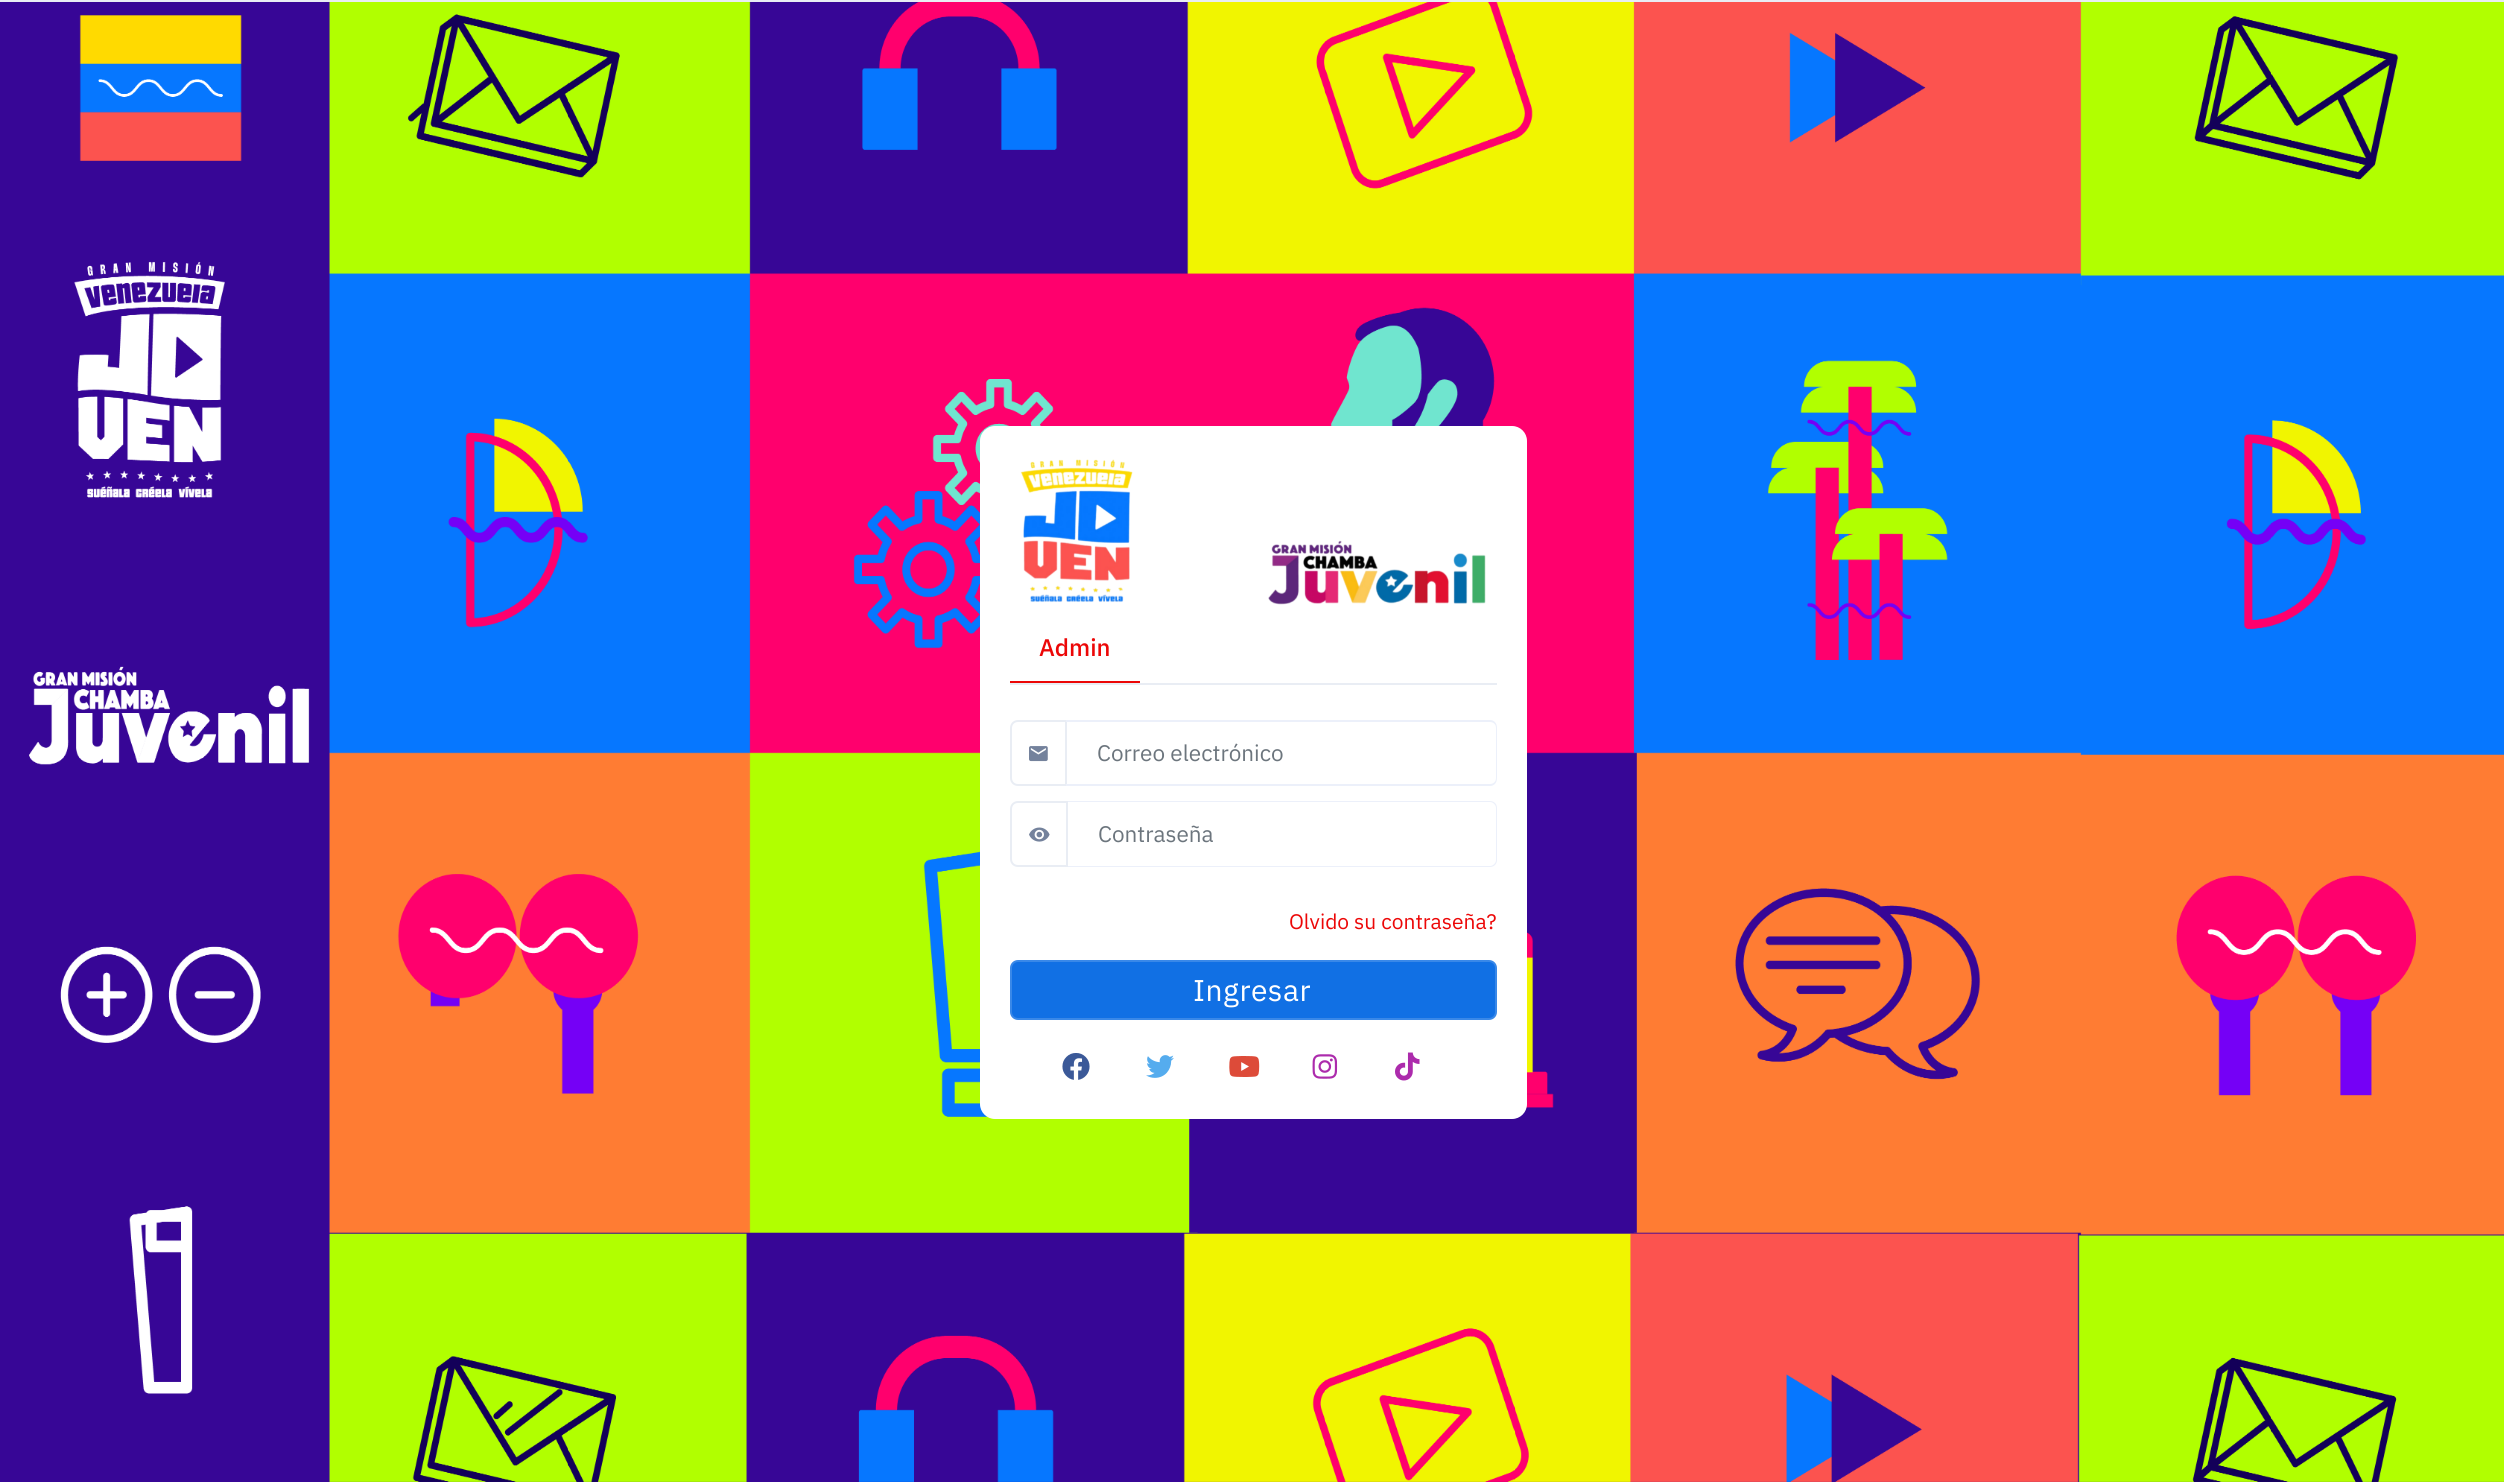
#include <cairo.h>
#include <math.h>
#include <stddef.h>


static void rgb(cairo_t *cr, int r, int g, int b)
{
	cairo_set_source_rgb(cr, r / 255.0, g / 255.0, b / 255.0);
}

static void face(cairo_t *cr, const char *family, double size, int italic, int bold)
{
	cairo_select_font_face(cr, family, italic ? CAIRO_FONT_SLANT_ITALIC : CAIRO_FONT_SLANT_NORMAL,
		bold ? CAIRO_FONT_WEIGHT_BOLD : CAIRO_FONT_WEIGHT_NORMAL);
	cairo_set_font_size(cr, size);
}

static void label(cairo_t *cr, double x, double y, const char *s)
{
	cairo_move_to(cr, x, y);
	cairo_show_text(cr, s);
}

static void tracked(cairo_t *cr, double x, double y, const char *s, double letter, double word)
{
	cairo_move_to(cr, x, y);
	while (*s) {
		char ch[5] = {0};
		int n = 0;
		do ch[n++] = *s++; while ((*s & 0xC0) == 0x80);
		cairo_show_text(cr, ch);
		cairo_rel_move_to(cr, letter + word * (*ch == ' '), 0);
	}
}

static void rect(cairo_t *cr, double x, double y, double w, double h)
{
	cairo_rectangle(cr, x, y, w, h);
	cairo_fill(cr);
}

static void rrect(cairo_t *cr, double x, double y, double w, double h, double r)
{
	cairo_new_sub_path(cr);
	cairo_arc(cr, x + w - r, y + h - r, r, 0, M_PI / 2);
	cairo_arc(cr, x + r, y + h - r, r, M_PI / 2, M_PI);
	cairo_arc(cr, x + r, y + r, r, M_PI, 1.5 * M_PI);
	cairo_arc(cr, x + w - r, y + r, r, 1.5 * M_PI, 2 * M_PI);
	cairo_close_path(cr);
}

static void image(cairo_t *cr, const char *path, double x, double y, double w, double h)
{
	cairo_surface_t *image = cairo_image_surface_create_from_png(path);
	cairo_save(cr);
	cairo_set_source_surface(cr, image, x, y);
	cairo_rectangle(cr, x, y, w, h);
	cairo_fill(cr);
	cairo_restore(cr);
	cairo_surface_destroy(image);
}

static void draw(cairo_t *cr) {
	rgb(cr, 55, 6, 150);
	cairo_paint(cr);
	image(cr, "image0.png", 29, 2, 2475, 1480);
	rgb(cr, 233, 237, 244);
	rect(cr, 0, 0, 2504, 2);
	rgb(cr, 255, 255, 255);
	rrect(cr, 980, 426, 547, 693, 15);
	cairo_fill(cr);
	image(cr, "image1.png", 1020, 459, 466, 146);
	rgb(cr, 233, 237, 244);
	rect(cr, 1010, 683, 487, 2);
	rgb(cr, 236, 7, 7);
	rect(cr, 1010, 681, 130, 2);
	face(cr, "IBM Plex Sans Medium", 24, 0, 0);
	label(cr, 1039, 656, "Admin");
	cairo_new_path(cr);
	cairo_move_to(cr, 1018, 721);
	cairo_line_to(cr, 1066, 721);
	cairo_line_to(cr, 1066, 785);
	cairo_line_to(cr, 1018, 785);
	cairo_curve_to(cr, 1014, 785, 1011, 782, 1011, 778);
	cairo_line_to(cr, 1011, 728);
	cairo_curve_to(cr, 1011, 724, 1014, 721, 1018, 721);
	cairo_close_path(cr);
	rgb(cr, 233, 237, 244);
	cairo_stroke(cr);
	image(cr, "image2.png", 1029, 746, 19, 16);
	rgb(cr, 236, 240, 250);
	cairo_set_fill_rule(cr, CAIRO_FILL_RULE_EVEN_ODD);
	cairo_new_path(cr);
	cairo_move_to(cr, 1066, 720);
	cairo_line_to(cr, 1490, 720);
	cairo_curve_to(cr, 1494, 720, 1497, 723, 1497, 728);
	cairo_line_to(cr, 1497, 778);
	cairo_curve_to(cr, 1497, 783, 1494, 786, 1490, 786);
	cairo_line_to(cr, 1066, 786);
	cairo_close_path(cr);
	cairo_move_to(cr, 1066, 722);
	cairo_line_to(cr, 1490, 722);
	cairo_curve_to(cr, 1493, 722, 1496, 724, 1496, 728);
	cairo_line_to(cr, 1496, 778);
	cairo_curve_to(cr, 1496, 782, 1493, 784, 1490, 784);
	cairo_line_to(cr, 1066, 784);
	cairo_close_path(cr);
	cairo_fill(cr);
	face(cr, "IBM Plex Sans", 22.5, 0, 0);
	rgb(cr, 108, 117, 125);
	label(cr, 1097, 761, "Correo electrónico");
	cairo_new_path(cr);
	cairo_move_to(cr, 1018, 802);
	cairo_line_to(cr, 1067, 802);
	cairo_line_to(cr, 1067, 866);
	cairo_line_to(cr, 1018, 866);
	cairo_curve_to(cr, 1014, 866, 1011, 863, 1011, 859);
	cairo_line_to(cr, 1011, 809);
	cairo_curve_to(cr, 1011, 805, 1014, 802, 1018, 802);
	cairo_close_path(cr);
	rgb(cr, 233, 237, 244);
	cairo_stroke(cr);
	image(cr, "image3.png", 1029, 827, 21, 15);
	rgb(cr, 236, 240, 250);
	cairo_new_path(cr);
	cairo_move_to(cr, 1068, 801);
	cairo_line_to(cr, 1490, 801);
	cairo_curve_to(cr, 1494, 801, 1497, 804, 1497, 808);
	cairo_line_to(cr, 1497, 860);
	cairo_curve_to(cr, 1497, 864, 1494, 867, 1490, 867);
	cairo_line_to(cr, 1068, 867);
	cairo_close_path(cr);
	cairo_move_to(cr, 1068, 802);
	cairo_line_to(cr, 1490, 802);
	cairo_curve_to(cr, 1493, 802, 1496, 805, 1496, 808);
	cairo_line_to(cr, 1496, 860);
	cairo_curve_to(cr, 1496, 863, 1493, 866, 1490, 866);
	cairo_line_to(cr, 1068, 866);
	cairo_close_path(cr);
	cairo_fill(cr);
	rgb(cr, 108, 117, 125);
	label(cr, 1098, 842, "Contraseña");
	face(cr, "IBM Plex Sans", 21, 0, 0);
	rgb(cr, 236, 7, 7);
	label(cr, 1289, 929, "Olvido su contraseña?");
	rgb(cr, 17, 112, 228);
	rrect(cr, 1011, 961, 485, 58, 7);
	cairo_fill_preserve(cr);
	rgb(cr, 57, 136, 232);
	cairo_stroke(cr);
	face(cr, "IBM Plex Sans", 30, 0, 0);
	rgb(cr, 255, 255, 255);
	tracked(cr, 1193, 1001, "Ingresar", 0.5, 0);
	image(cr, "image4.png", 1062, 1053, 28, 27);
	image(cr, "image5.png", 1146, 1055, 28, 23);
	image(cr, "image6.png", 1229, 1056, 31, 21);
	image(cr, "image7.png", 1312, 1054, 26, 25);
	image(cr, "image8.png", 1395, 1052, 25, 29);
}

int main(void) {
	cairo_surface_t *surface = cairo_image_surface_create(CAIRO_FORMAT_RGB24, 2504, 1482);
	cairo_t *cr = cairo_create(surface);
	cairo_font_options_t *options = cairo_font_options_create();
	cairo_font_options_set_hint_metrics(options, CAIRO_HINT_METRICS_OFF);
	cairo_font_options_set_hint_style(options, CAIRO_HINT_STYLE_NONE);
	cairo_set_font_options(cr, options);
	cairo_set_miter_limit(cr, 4);
	draw(cr);
	cairo_surface_write_to_png(surface, "render.png");
	cairo_font_options_destroy(options);
	cairo_destroy(cr);
	cairo_surface_destroy(surface);
	return 0;
}
